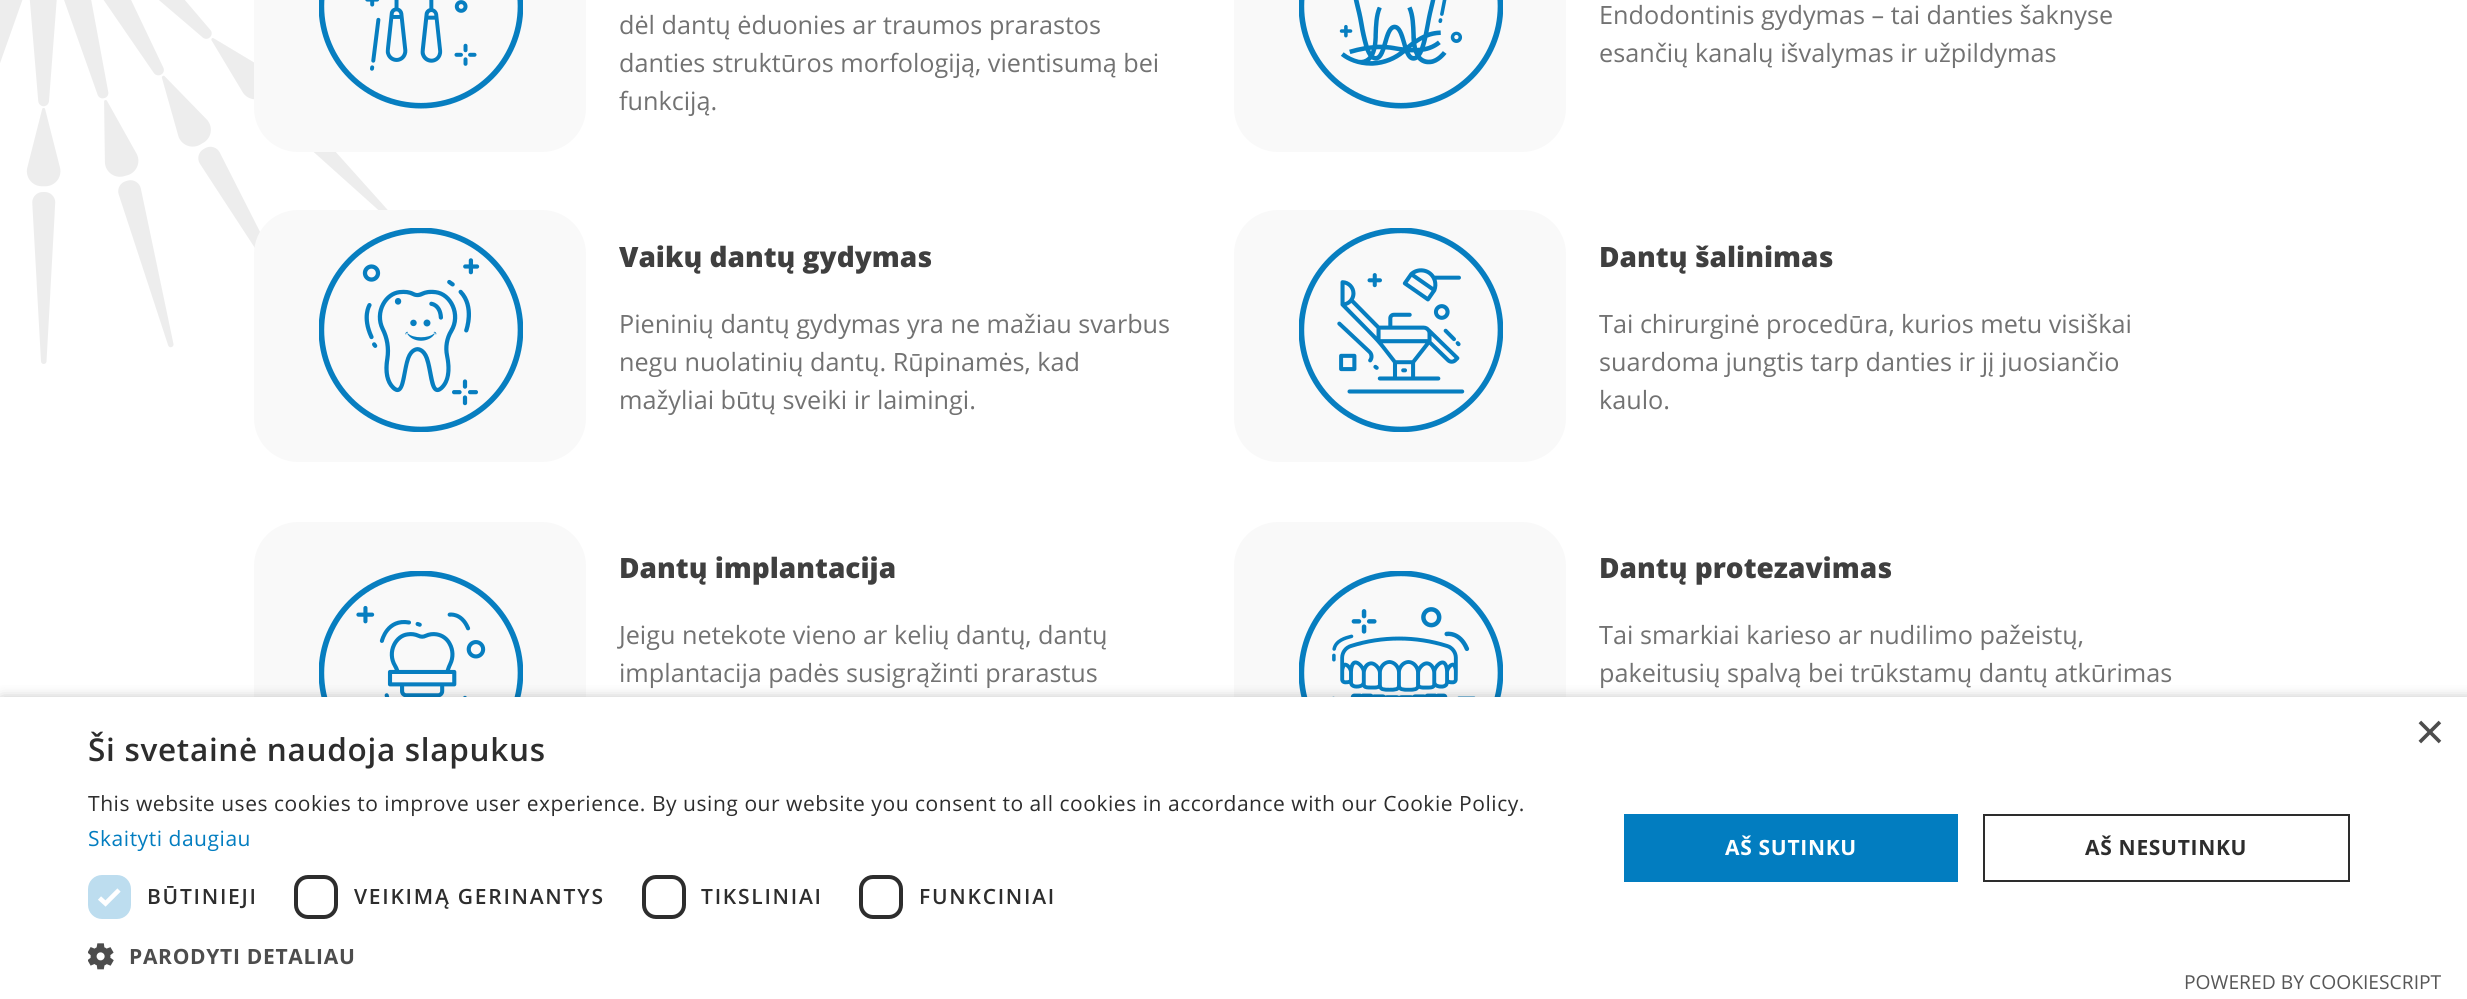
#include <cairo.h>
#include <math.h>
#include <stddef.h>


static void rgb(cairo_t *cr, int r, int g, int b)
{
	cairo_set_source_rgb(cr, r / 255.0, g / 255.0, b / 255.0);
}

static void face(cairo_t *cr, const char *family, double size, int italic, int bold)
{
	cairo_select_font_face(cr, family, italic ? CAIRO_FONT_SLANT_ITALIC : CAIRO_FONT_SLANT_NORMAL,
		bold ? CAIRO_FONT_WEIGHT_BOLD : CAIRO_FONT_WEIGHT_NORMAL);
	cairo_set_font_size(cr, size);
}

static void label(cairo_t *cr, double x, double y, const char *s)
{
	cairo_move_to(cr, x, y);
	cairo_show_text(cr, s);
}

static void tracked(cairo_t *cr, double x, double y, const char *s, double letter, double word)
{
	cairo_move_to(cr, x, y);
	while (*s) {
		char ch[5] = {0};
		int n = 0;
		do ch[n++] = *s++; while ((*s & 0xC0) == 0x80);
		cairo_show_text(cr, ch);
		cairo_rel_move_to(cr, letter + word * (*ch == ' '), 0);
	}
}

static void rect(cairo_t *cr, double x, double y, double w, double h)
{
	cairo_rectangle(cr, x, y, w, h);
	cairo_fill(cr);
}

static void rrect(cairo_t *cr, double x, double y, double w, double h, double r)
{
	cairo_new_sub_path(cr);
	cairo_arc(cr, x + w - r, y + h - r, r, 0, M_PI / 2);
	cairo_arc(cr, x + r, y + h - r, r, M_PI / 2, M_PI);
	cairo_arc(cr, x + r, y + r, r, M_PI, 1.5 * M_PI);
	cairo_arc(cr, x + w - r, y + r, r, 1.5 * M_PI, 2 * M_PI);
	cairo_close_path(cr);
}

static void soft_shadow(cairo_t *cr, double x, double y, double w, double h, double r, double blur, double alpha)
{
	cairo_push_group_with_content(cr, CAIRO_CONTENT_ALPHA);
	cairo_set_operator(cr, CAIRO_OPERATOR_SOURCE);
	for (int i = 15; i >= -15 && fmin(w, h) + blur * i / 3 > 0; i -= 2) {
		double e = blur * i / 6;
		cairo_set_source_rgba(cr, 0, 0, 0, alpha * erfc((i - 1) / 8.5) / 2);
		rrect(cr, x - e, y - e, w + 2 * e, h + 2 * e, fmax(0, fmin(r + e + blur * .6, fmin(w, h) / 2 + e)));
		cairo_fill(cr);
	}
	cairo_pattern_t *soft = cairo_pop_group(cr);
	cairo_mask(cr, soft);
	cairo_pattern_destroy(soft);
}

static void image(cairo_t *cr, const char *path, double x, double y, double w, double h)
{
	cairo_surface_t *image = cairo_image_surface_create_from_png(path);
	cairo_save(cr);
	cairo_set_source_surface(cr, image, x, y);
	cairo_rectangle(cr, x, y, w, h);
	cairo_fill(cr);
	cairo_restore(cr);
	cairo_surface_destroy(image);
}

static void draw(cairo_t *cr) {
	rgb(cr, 255, 255, 255);
	cairo_paint(cr);
	image(cr, "image0.png", 0, 0, 388, 364);
	rgb(cr, 249, 249, 249);
	rrect(cr, 254, -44, 332, 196, 44);
	cairo_fill(cr);
	image(cr, "image1.png", 319, 0, 204, 109);
	face(cr, "Open Sans", 25.2, 0, 0);
	rgb(cr, 114, 114, 114);
	label(cr, 619, 34, "dėl dantų ėduonies ar traumos prarastos");
	label(cr, 619, 72, "danties struktūros morfologiją, vientisumą bei");
	label(cr, 619, 110, "funkciją.");
	rgb(cr, 249, 249, 249);
	rrect(cr, 1234, -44, 332, 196, 44);
	cairo_fill(cr);
	image(cr, "image2.png", 1299, 0, 204, 109);
	rgb(cr, 114, 114, 114);
	label(cr, 1599, 24, "Endodontinis gydymas – tai danties šaknyse");
	label(cr, 1599, 62, "esančių kanalų išvalymas ir užpildymas");
	rgb(cr, 249, 249, 249);
	rrect(cr, 254, 210, 332, 252, 44);
	cairo_fill(cr);
	image(cr, "image3.png", 319, 228, 204, 204);
	face(cr, "Open Sans ExtraBold", 28, 0, 0);
	rgb(cr, 63, 63, 63);
	label(cr, 619, 267, "Vaikų dantų gydymas");
	face(cr, "Open Sans", 25.2, 0, 0);
	rgb(cr, 114, 114, 114);
	label(cr, 619, 333, "Pieninių dantų gydymas yra ne mažiau svarbus");
	label(cr, 619, 371, "negu nuolatinių dantų. Rūpinamės, kad");
	label(cr, 619, 409, "mažyliai būtų sveiki ir laimingi.");
	rgb(cr, 249, 249, 249);
	rrect(cr, 1234, 210, 332, 252, 44);
	cairo_fill(cr);
	image(cr, "image4.png", 1299, 228, 204, 204);
	face(cr, "Open Sans ExtraBold", 28, 0, 0);
	rgb(cr, 63, 63, 63);
	label(cr, 1599, 267, "Dantų šalinimas");
	face(cr, "Open Sans", 25.2, 0, 0);
	rgb(cr, 114, 114, 114);
	label(cr, 1599, 333, "Tai chirurginė procedūra, kurios metu visiškai");
	label(cr, 1599, 371, "suardoma jungtis tarp danties ir jį juosiančio");
	label(cr, 1599, 409, "kaulo.");
	rgb(cr, 249, 249, 249);
	rrect(cr, 254, 522, 332, 315, 44);
	cairo_fill(cr);
	image(cr, "image5.png", 319, 571, 204, 126);
	face(cr, "Open Sans ExtraBold", 28, 0, 0);
	rgb(cr, 63, 63, 63);
	label(cr, 619, 578, "Dantų implantacija");
	face(cr, "Open Sans", 25.2, 0, 0);
	rgb(cr, 114, 114, 114);
	label(cr, 619, 644, "Jeigu netekote vieno ar kelių dantų, dantų");
	label(cr, 619, 682, "implantacija padės susigrąžinti prarastus");
	rgb(cr, 249, 249, 249);
	rrect(cr, 1234, 522, 332, 315, 44);
	cairo_fill(cr);
	image(cr, "image6.png", 1299, 571, 204, 126);
	face(cr, "Open Sans ExtraBold", 28, 0, 0);
	rgb(cr, 63, 63, 63);
	label(cr, 1599, 578, "Dantų protezavimas");
	face(cr, "Open Sans", 25.2, 0, 0);
	rgb(cr, 114, 114, 114);
	label(cr, 1599, 644, "Tai smarkiai karieso ar nudilimo pažeistų,");
	label(cr, 1599, 682, "pakeitusių spalvą bei trūkstamų dantų atkūrimas");
	rgb(cr, 0, 0, 0);
	soft_shadow(cr, 2, 700, 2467, 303, 0, 7, 0.35);
	rgb(cr, 255, 255, 255);
	rect(cr, 0, 697, 2467, 302);
	face(cr, "Open Sans SemiBold", 31.5, 0, 0);
	rgb(cr, 45, 45, 45);
	tracked(cr, 88, 761, "Ši svetainė naudoja slapukus", 0.7, 0);
	face(cr, "Open Sans", 21, 0, 0);
	tracked(cr, 88, 811, "This website uses cookies to improve user experience. By using our website you consent to all cookies in accordance with our Cookie Policy.", 0.53, 0);
	rgb(cr, 2, 125, 192);
	tracked(cr, 88, 846, "Skaityti daugiau", 0.53, 0);
	rgb(cr, 189, 221, 239);
	rrect(cr, 88, 875, 43, 44, 14);
	cairo_fill(cr);
	cairo_new_path(cr);
	cairo_move_to(cr, 99.5, 898);
	cairo_line_to(cr, 105.5, 903.5);
	cairo_line_to(cr, 119, 890);
	rgb(cr, 255, 255, 255);
	cairo_set_line_width(cr, 4.6);
	cairo_stroke(cr);
	face(cr, "Open Sans SemiBold", 21, 0, 0);
	rgb(cr, 45, 45, 45);
	tracked(cr, 147, 904, "BŪTINIEJI", 1.75, 0);
	rrect(cr, 296, 877, 40, 40, 12);
	cairo_set_line_width(cr, 4);
	cairo_stroke(cr);
	tracked(cr, 354, 904, "VEIKIMĄ GERINANTYS", 1.75, 0);
	rrect(cr, 644, 877, 40, 40, 12);
	cairo_stroke(cr);
	tracked(cr, 701, 904, "TIKSLINIAI", 1.75, 0);
	rrect(cr, 861, 877, 40, 40, 12);
	cairo_stroke(cr);
	tracked(cr, 919, 904, "FUNKCINIAI", 1.75, 0);
	image(cr, "image7.png", 88, 943, 26, 27);
	face(cr, "Open Sans", 21, 0, 1);
	rgb(cr, 77, 77, 77);
	tracked(cr, 129, 964, "PARODYTI DETALIAU", 0.7, 0);
	rgb(cr, 2, 125, 192);
	rect(cr, 1624, 814, 334, 68);
	rgb(cr, 255, 255, 255);
	tracked(cr, 1725, 855, "AŠ SUTINKU", 0.7, 0);
	cairo_rectangle(cr, 1984, 815, 365, 66);
	rgb(cr, 45, 45, 45);
	cairo_set_line_width(cr, 2);
	cairo_stroke(cr);
	tracked(cr, 2085, 855, "AŠ NESUTINKU", 0.7, 0);
	face(cr, "Liberation Sans", 51, 0, 0);
	rgb(cr, 77, 77, 77);
	label(cr, 2415, 749, "×");
	face(cr, "Open Sans", 19.25, 0, 0);
	rgb(cr, 87, 87, 87);
	label(cr, 2184, 989, "POWERED BY COOKIESCRIPT");
}

int main(void) {
	cairo_surface_t *surface = cairo_image_surface_create(CAIRO_FORMAT_RGB24, 2467, 999);
	cairo_t *cr = cairo_create(surface);
	cairo_font_options_t *options = cairo_font_options_create();
	cairo_font_options_set_hint_metrics(options, CAIRO_HINT_METRICS_OFF);
	cairo_font_options_set_hint_style(options, CAIRO_HINT_STYLE_NONE);
	cairo_set_font_options(cr, options);
	cairo_set_miter_limit(cr, 4);
	draw(cr);
	cairo_surface_write_to_png(surface, "render.png");
	cairo_font_options_destroy(options);
	cairo_destroy(cr);
	cairo_surface_destroy(surface);
	return 0;
}
